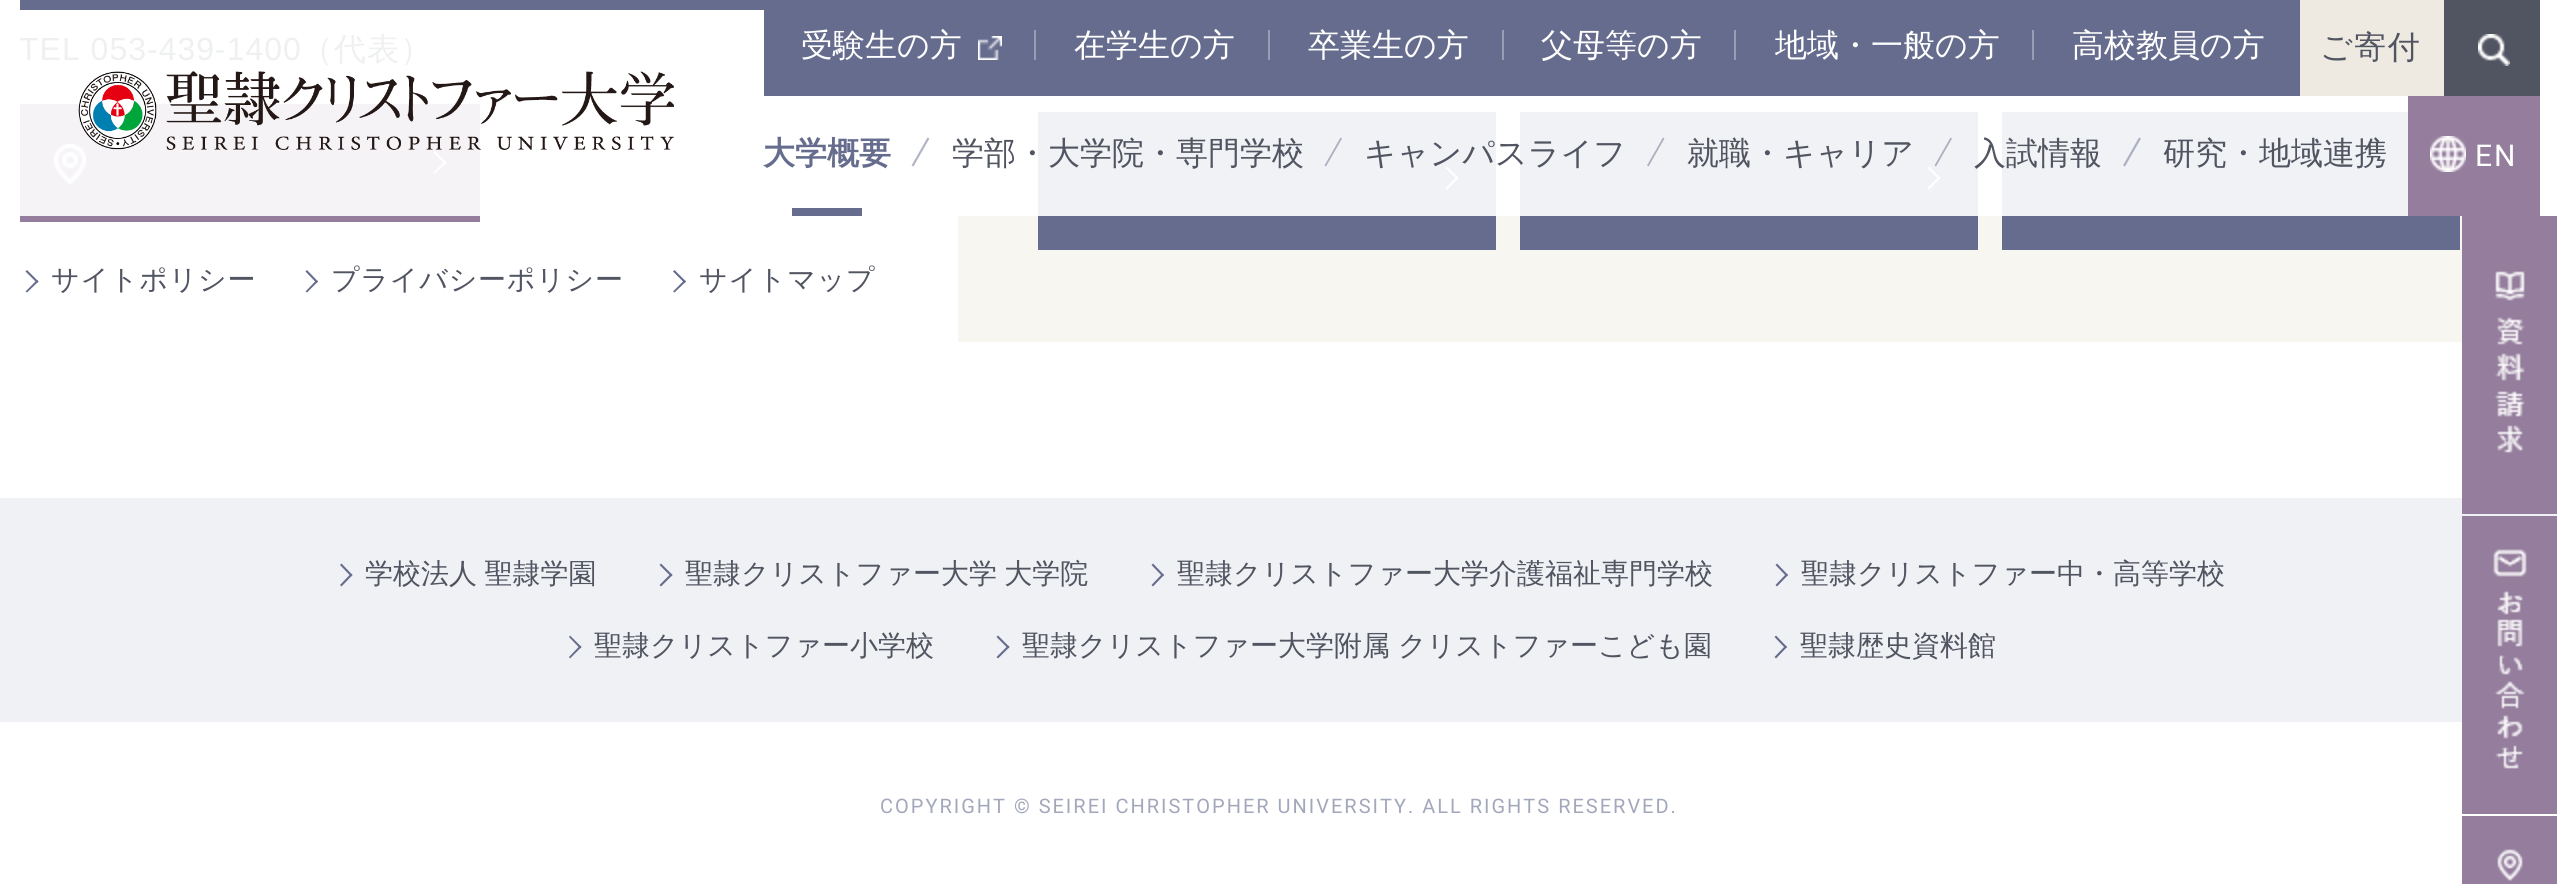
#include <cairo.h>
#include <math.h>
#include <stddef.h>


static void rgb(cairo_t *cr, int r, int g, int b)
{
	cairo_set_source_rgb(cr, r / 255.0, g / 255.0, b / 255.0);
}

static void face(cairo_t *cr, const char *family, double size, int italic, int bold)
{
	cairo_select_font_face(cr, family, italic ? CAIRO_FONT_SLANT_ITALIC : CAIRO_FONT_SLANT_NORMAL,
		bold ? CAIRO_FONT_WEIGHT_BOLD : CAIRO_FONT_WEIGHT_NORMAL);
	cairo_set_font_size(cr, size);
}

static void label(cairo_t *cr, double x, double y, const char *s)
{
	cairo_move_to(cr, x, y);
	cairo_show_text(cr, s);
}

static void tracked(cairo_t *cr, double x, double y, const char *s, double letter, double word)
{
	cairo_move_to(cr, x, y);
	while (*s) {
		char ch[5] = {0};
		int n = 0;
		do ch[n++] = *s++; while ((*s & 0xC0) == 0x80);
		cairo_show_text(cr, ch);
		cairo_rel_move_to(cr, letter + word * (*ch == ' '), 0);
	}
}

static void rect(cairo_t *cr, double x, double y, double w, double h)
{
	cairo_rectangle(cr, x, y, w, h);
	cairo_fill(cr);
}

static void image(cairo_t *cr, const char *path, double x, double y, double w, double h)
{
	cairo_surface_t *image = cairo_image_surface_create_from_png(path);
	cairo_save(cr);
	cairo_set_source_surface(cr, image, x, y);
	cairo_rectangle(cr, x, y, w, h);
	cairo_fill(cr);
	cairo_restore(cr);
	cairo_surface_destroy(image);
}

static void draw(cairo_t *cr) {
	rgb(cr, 255, 255, 255);
	cairo_paint(cr);
	rgb(cr, 102, 108, 141);
	rect(cr, 20, 0, 744, 10);
	rgb(cr, 245, 243, 246);
	rect(cr, 20, 104, 460, 112);
	image(cr, "image4.png", 54, 144, 32, 40);
	image(cr, "image0.png", 78, 71, 596, 79);
	rgb(cr, 102, 108, 141);
	rect(cr, 764, 0, 1536, 96);
	face(cr, "WenQuanYi Zen Hei Medium", 32, 0, 0);
	rgb(cr, 255, 255, 255);
	label(cr, 801, 56, "受験生の方");
	image(cr, "image1.png", 978, 36, 24, 24);
	rgb(cr, 152, 157, 179);
	rect(cr, 1034, 30, 2, 30);
	rgb(cr, 255, 255, 255);
	label(cr, 1074, 56, "在学生の方");
	rgb(cr, 152, 157, 179);
	rect(cr, 1268, 30, 2, 30);
	rgb(cr, 255, 255, 255);
	label(cr, 1308, 56, "卒業生の方");
	rgb(cr, 152, 157, 179);
	rect(cr, 1502, 30, 2, 30);
	rgb(cr, 255, 255, 255);
	label(cr, 1541, 56, "父母等の方");
	rgb(cr, 152, 157, 179);
	rect(cr, 1734, 30, 2, 30);
	rgb(cr, 255, 255, 255);
	label(cr, 1775, 56, "地域・一般の方");
	rgb(cr, 152, 157, 179);
	rect(cr, 2032, 30, 2, 30);
	rgb(cr, 255, 255, 255);
	label(cr, 2072, 56, "高校教員の方");
	rgb(cr, 238, 234, 226);
	rect(cr, 2300, 0, 144, 96);
	rgb(cr, 81, 84, 97);
	tracked(cr, 2320, 58, "ご寄付", 1.5, 0);
	rect(cr, 2444, 0, 96, 96);
	image(cr, "image2.png", 2478, 34, 32, 32);
	face(cr, "WenQuanYi Zen Hei", 32, 0, 1);
	rgb(cr, 102, 108, 141);
	label(cr, 763, 164, "大学概要");
	rect(cr, 792, 208, 70, 8);
	rgb(cr, 178, 181, 198);
	cairo_new_path(cr);
	cairo_move_to(cr, 927.5, 137.5);
	cairo_line_to(cr, 929.5, 138.5);
	cairo_line_to(cr, 913.5, 166.5);
	cairo_line_to(cr, 911.5, 165.5);
	cairo_close_path(cr);
	cairo_fill(cr);
	rgb(cr, 241, 242, 245);
	rect(cr, 1038, 112, 458, 104);
	face(cr, "WenQuanYi Zen Hei Medium", 32, 0, 0);
	rgb(cr, 81, 84, 97);
	label(cr, 952, 164, "学部・大学院・専門学校");
	rgb(cr, 172, 175, 193);
	cairo_new_path(cr);
	cairo_move_to(cr, 1340.5, 137.5);
	cairo_line_to(cr, 1342, 138.5);
	cairo_line_to(cr, 1326, 166.5);
	cairo_line_to(cr, 1324.5, 165.5);
	cairo_close_path(cr);
	cairo_fill(cr);
	rgb(cr, 255, 255, 255);
	cairo_new_path(cr);
	cairo_move_to(cr, 1458.5, 178);
	cairo_line_to(cr, 1447, 189.5);
	cairo_line_to(cr, 1445.5, 188);
	cairo_line_to(cr, 1457, 176.5);
	cairo_close_path(cr);
	cairo_fill(cr);
	cairo_new_path(cr);
	cairo_move_to(cr, 1458.5, 178);
	cairo_line_to(cr, 1457, 179.5);
	cairo_line_to(cr, 1445.5, 168);
	cairo_line_to(cr, 1447, 166.5);
	cairo_close_path(cr);
	cairo_fill(cr);
	rgb(cr, 241, 242, 245);
	rect(cr, 1520, 112, 458, 104);
	rgb(cr, 81, 84, 97);
	label(cr, 1364, 164, "キャンパスライフ");
	rgb(cr, 172, 175, 193);
	cairo_new_path(cr);
	cairo_move_to(cr, 1663, 137.5);
	cairo_line_to(cr, 1664.5, 138.5);
	cairo_line_to(cr, 1648.5, 166.5);
	cairo_line_to(cr, 1647, 165.5);
	cairo_close_path(cr);
	cairo_fill(cr);
	rgb(cr, 81, 84, 97);
	label(cr, 1687, 164, "就職・キャリア");
	rgb(cr, 255, 255, 255);
	cairo_new_path(cr);
	cairo_move_to(cr, 1940.5, 178);
	cairo_line_to(cr, 1929, 189.5);
	cairo_line_to(cr, 1927.5, 188);
	cairo_line_to(cr, 1939, 176.5);
	cairo_close_path(cr);
	cairo_fill(cr);
	cairo_new_path(cr);
	cairo_move_to(cr, 1940.5, 178);
	cairo_line_to(cr, 1939, 179.5);
	cairo_line_to(cr, 1927.5, 168);
	cairo_line_to(cr, 1929, 166.5);
	cairo_close_path(cr);
	cairo_fill(cr);
	rgb(cr, 172, 175, 193);
	cairo_new_path(cr);
	cairo_move_to(cr, 1950.5, 137.5);
	cairo_line_to(cr, 1952, 138.5);
	cairo_line_to(cr, 1936, 166.5);
	cairo_line_to(cr, 1934.5, 165.5);
	cairo_close_path(cr);
	cairo_fill(cr);
	rgb(cr, 241, 242, 245);
	rect(cr, 2002, 112, 406, 104);
	rgb(cr, 81, 84, 97);
	label(cr, 1974, 164, "入試情報");
	rgb(cr, 172, 175, 193);
	cairo_new_path(cr);
	cairo_move_to(cr, 2139, 137.5);
	cairo_line_to(cr, 2141, 138.5);
	cairo_line_to(cr, 2125, 166.5);
	cairo_line_to(cr, 2123, 165.5);
	cairo_close_path(cr);
	cairo_fill(cr);
	rgb(cr, 81, 84, 97);
	label(cr, 2163, 164, "研究・地域連携");
	rgb(cr, 149, 126, 157);
	rect(cr, 2408, 96, 132, 120);
	image(cr, "image3.png", 2430, 136, 36, 36);
	face(cr, "Roboto", 30, 0, 0);
	rgb(cr, 255, 255, 255);
	tracked(cr, 2475, 166, "EN", 2, 0);
	face(cr, "Liberation Sans", 32, 0, 0);
	rgb(cr, 239, 240, 241);
	tracked(cr, 19, 60, "TEL 053-439-1400", 1, 0);
	face(cr, "WenQuanYi Zen Hei Medium", 32, 0, 0);
	tracked(cr, 301, 60, "（代表）", 1, 0);
	rgb(cr, 149, 126, 157);
	rect(cr, 20, 216, 460, 6);
	rgb(cr, 255, 255, 255);
	cairo_new_path(cr);
	cairo_move_to(cr, 446.5, 162.5);
	cairo_line_to(cr, 435, 173.5);
	cairo_line_to(cr, 433.5, 172.5);
	cairo_line_to(cr, 445, 161);
	cairo_close_path(cr);
	cairo_fill(cr);
	cairo_new_path(cr);
	cairo_move_to(cr, 446.5, 162.5);
	cairo_line_to(cr, 445, 164);
	cairo_line_to(cr, 433.5, 152.5);
	cairo_line_to(cr, 435, 151);
	cairo_close_path(cr);
	cairo_fill(cr);
	rgb(cr, 102, 108, 141);
	cairo_new_path(cr);
	cairo_move_to(cr, 38.5, 281.5);
	cairo_line_to(cr, 27, 292.5);
	cairo_line_to(cr, 25.5, 291.5);
	cairo_line_to(cr, 37, 280);
	cairo_close_path(cr);
	cairo_fill(cr);
	cairo_new_path(cr);
	cairo_move_to(cr, 38.5, 281.5);
	cairo_line_to(cr, 37, 283);
	cairo_line_to(cr, 25.5, 271.5);
	cairo_line_to(cr, 27, 270);
	cairo_close_path(cr);
	cairo_fill(cr);
	face(cr, "WenQuanYi Zen Hei Medium", 28, 0, 0);
	rgb(cr, 81, 84, 97);
	tracked(cr, 51, 289, "サイトポリシー", 0.75, 0);
	rgb(cr, 102, 108, 141);
	cairo_new_path(cr);
	cairo_move_to(cr, 318, 281.5);
	cairo_line_to(cr, 307, 292.5);
	cairo_line_to(cr, 305.5, 291.5);
	cairo_line_to(cr, 316.5, 280);
	cairo_close_path(cr);
	cairo_fill(cr);
	cairo_new_path(cr);
	cairo_move_to(cr, 318, 281.5);
	cairo_line_to(cr, 316.5, 283);
	cairo_line_to(cr, 305.5, 271.5);
	cairo_line_to(cr, 307, 270);
	cairo_close_path(cr);
	cairo_fill(cr);
	rgb(cr, 81, 84, 97);
	tracked(cr, 331, 289, "プライバシーポリシー", 0.75, 0);
	rgb(cr, 102, 108, 141);
	cairo_new_path(cr);
	cairo_move_to(cr, 686, 281.5);
	cairo_line_to(cr, 674.5, 292.5);
	cairo_line_to(cr, 673, 291.5);
	cairo_line_to(cr, 684.5, 280);
	cairo_close_path(cr);
	cairo_fill(cr);
	cairo_new_path(cr);
	cairo_move_to(cr, 686, 281.5);
	cairo_line_to(cr, 684.5, 283);
	cairo_line_to(cr, 673, 271.5);
	cairo_line_to(cr, 674.5, 270);
	cairo_close_path(cr);
	cairo_fill(cr);
	rgb(cr, 81, 84, 97);
	tracked(cr, 699, 289, "サイトマップ", 0.75, 0);
	rgb(cr, 248, 246, 241);
	rect(cr, 958, 216, 1504, 126);
	rgb(cr, 102, 108, 141);
	rect(cr, 1038, 216, 458, 34);
	rect(cr, 1520, 216, 458, 34);
	rect(cr, 2002, 216, 458, 34);
	rgb(cr, 240, 241, 244);
	rect(cr, 0, 498, 2557, 224);
	rgb(cr, 102, 108, 141);
	cairo_new_path(cr);
	cairo_move_to(cr, 352.5, 575);
	cairo_line_to(cr, 341.5, 586.5);
	cairo_line_to(cr, 340, 585);
	cairo_line_to(cr, 351, 573.5);
	cairo_close_path(cr);
	cairo_fill(cr);
	cairo_new_path(cr);
	cairo_move_to(cr, 352.5, 575);
	cairo_line_to(cr, 351, 576.5);
	cairo_line_to(cr, 340, 565);
	cairo_line_to(cr, 341.5, 563.5);
	cairo_close_path(cr);
	cairo_fill(cr);
	rgb(cr, 81, 84, 97);
	tracked(cr, 365, 583, "学校法人 聖隷学園", 0, -1);
	rgb(cr, 102, 108, 141);
	cairo_new_path(cr);
	cairo_move_to(cr, 672.5, 575);
	cairo_line_to(cr, 661, 586.5);
	cairo_line_to(cr, 659.5, 585);
	cairo_line_to(cr, 671, 573.5);
	cairo_close_path(cr);
	cairo_fill(cr);
	cairo_new_path(cr);
	cairo_move_to(cr, 672.5, 575);
	cairo_line_to(cr, 671, 576.5);
	cairo_line_to(cr, 659.5, 565);
	cairo_line_to(cr, 661, 563.5);
	cairo_close_path(cr);
	cairo_fill(cr);
	rgb(cr, 81, 84, 97);
	tracked(cr, 685, 583, "聖隷クリストファー大学 大学院", 0, -1);
	rgb(cr, 102, 108, 141);
	cairo_new_path(cr);
	cairo_move_to(cr, 1164, 575);
	cairo_line_to(cr, 1153, 586.5);
	cairo_line_to(cr, 1151.5, 585);
	cairo_line_to(cr, 1162.5, 573.5);
	cairo_close_path(cr);
	cairo_fill(cr);
	cairo_new_path(cr);
	cairo_move_to(cr, 1164, 575);
	cairo_line_to(cr, 1162.5, 576.5);
	cairo_line_to(cr, 1151.5, 565);
	cairo_line_to(cr, 1153, 563.5);
	cairo_close_path(cr);
	cairo_fill(cr);
	rgb(cr, 81, 84, 97);
	label(cr, 1177, 583, "聖隷クリストファー大学介護福祉専門学校");
	rgb(cr, 102, 108, 141);
	cairo_new_path(cr);
	cairo_move_to(cr, 1788, 575);
	cairo_line_to(cr, 1777, 586.5);
	cairo_line_to(cr, 1775.5, 585);
	cairo_line_to(cr, 1786.5, 573.5);
	cairo_close_path(cr);
	cairo_fill(cr);
	cairo_new_path(cr);
	cairo_move_to(cr, 1788, 575);
	cairo_line_to(cr, 1786.5, 576.5);
	cairo_line_to(cr, 1775.5, 565);
	cairo_line_to(cr, 1777, 563.5);
	cairo_close_path(cr);
	cairo_fill(cr);
	rgb(cr, 81, 84, 97);
	label(cr, 1801, 583, "聖隷クリストファー中・高等学校");
	rgb(cr, 102, 108, 141);
	cairo_new_path(cr);
	cairo_move_to(cr, 581.5, 647);
	cairo_line_to(cr, 570, 658.5);
	cairo_line_to(cr, 569, 657);
	cairo_line_to(cr, 580, 645.5);
	cairo_close_path(cr);
	cairo_fill(cr);
	cairo_new_path(cr);
	cairo_move_to(cr, 581.5, 647);
	cairo_line_to(cr, 580, 648.5);
	cairo_line_to(cr, 569, 637);
	cairo_line_to(cr, 570, 635.5);
	cairo_close_path(cr);
	cairo_fill(cr);
	rgb(cr, 81, 84, 97);
	label(cr, 594, 655, "聖隷クリストファー小学校");
	rgb(cr, 102, 108, 141);
	cairo_new_path(cr);
	cairo_move_to(cr, 1009.5, 647);
	cairo_line_to(cr, 998, 658.5);
	cairo_line_to(cr, 996.5, 657);
	cairo_line_to(cr, 1008, 645.5);
	cairo_close_path(cr);
	cairo_fill(cr);
	cairo_new_path(cr);
	cairo_move_to(cr, 1009.5, 647);
	cairo_line_to(cr, 1008, 648.5);
	cairo_line_to(cr, 996.5, 637);
	cairo_line_to(cr, 998, 635.5);
	cairo_close_path(cr);
	cairo_fill(cr);
	rgb(cr, 81, 84, 97);
	label(cr, 1022, 655, "聖隷クリストファー大学附属");
	label(cr, 1398, 655, "クリストファーこども園");
	rgb(cr, 102, 108, 141);
	cairo_new_path(cr);
	cairo_move_to(cr, 1787, 647);
	cairo_line_to(cr, 1776, 658.5);
	cairo_line_to(cr, 1774.5, 657);
	cairo_line_to(cr, 1785.5, 645.5);
	cairo_close_path(cr);
	cairo_fill(cr);
	cairo_new_path(cr);
	cairo_move_to(cr, 1787, 647);
	cairo_line_to(cr, 1785.5, 648.5);
	cairo_line_to(cr, 1774.5, 637);
	cairo_line_to(cr, 1776, 635.5);
	cairo_close_path(cr);
	cairo_fill(cr);
	rgb(cr, 81, 84, 97);
	label(cr, 1800, 655, "聖隷歴史資料館");
	face(cr, "Roboto", 20, 0, 0);
	rgb(cr, 163, 167, 187);
	tracked(cr, 880, 813, "COPYRIGHT © SEIREI CHRISTOPHER UNIVERSITY. ALL RIGHTS RESERVED.", 2, 0);
	image(cr, "image5.png", 2462, 216, 95, 298);
	image(cr, "image6.png", 2462, 516, 95, 298);
	image(cr, "image7.png", 2462, 816, 95, 68);
}

int main(void) {
	cairo_surface_t *surface = cairo_image_surface_create(CAIRO_FORMAT_RGB24, 2557, 884);
	cairo_t *cr = cairo_create(surface);
	cairo_font_options_t *options = cairo_font_options_create();
	cairo_font_options_set_hint_metrics(options, CAIRO_HINT_METRICS_OFF);
	cairo_font_options_set_hint_style(options, CAIRO_HINT_STYLE_NONE);
	cairo_set_font_options(cr, options);
	cairo_set_miter_limit(cr, 4);
	draw(cr);
	cairo_surface_write_to_png(surface, "render.png");
	cairo_font_options_destroy(options);
	cairo_destroy(cr);
	cairo_surface_destroy(surface);
	return 0;
}
